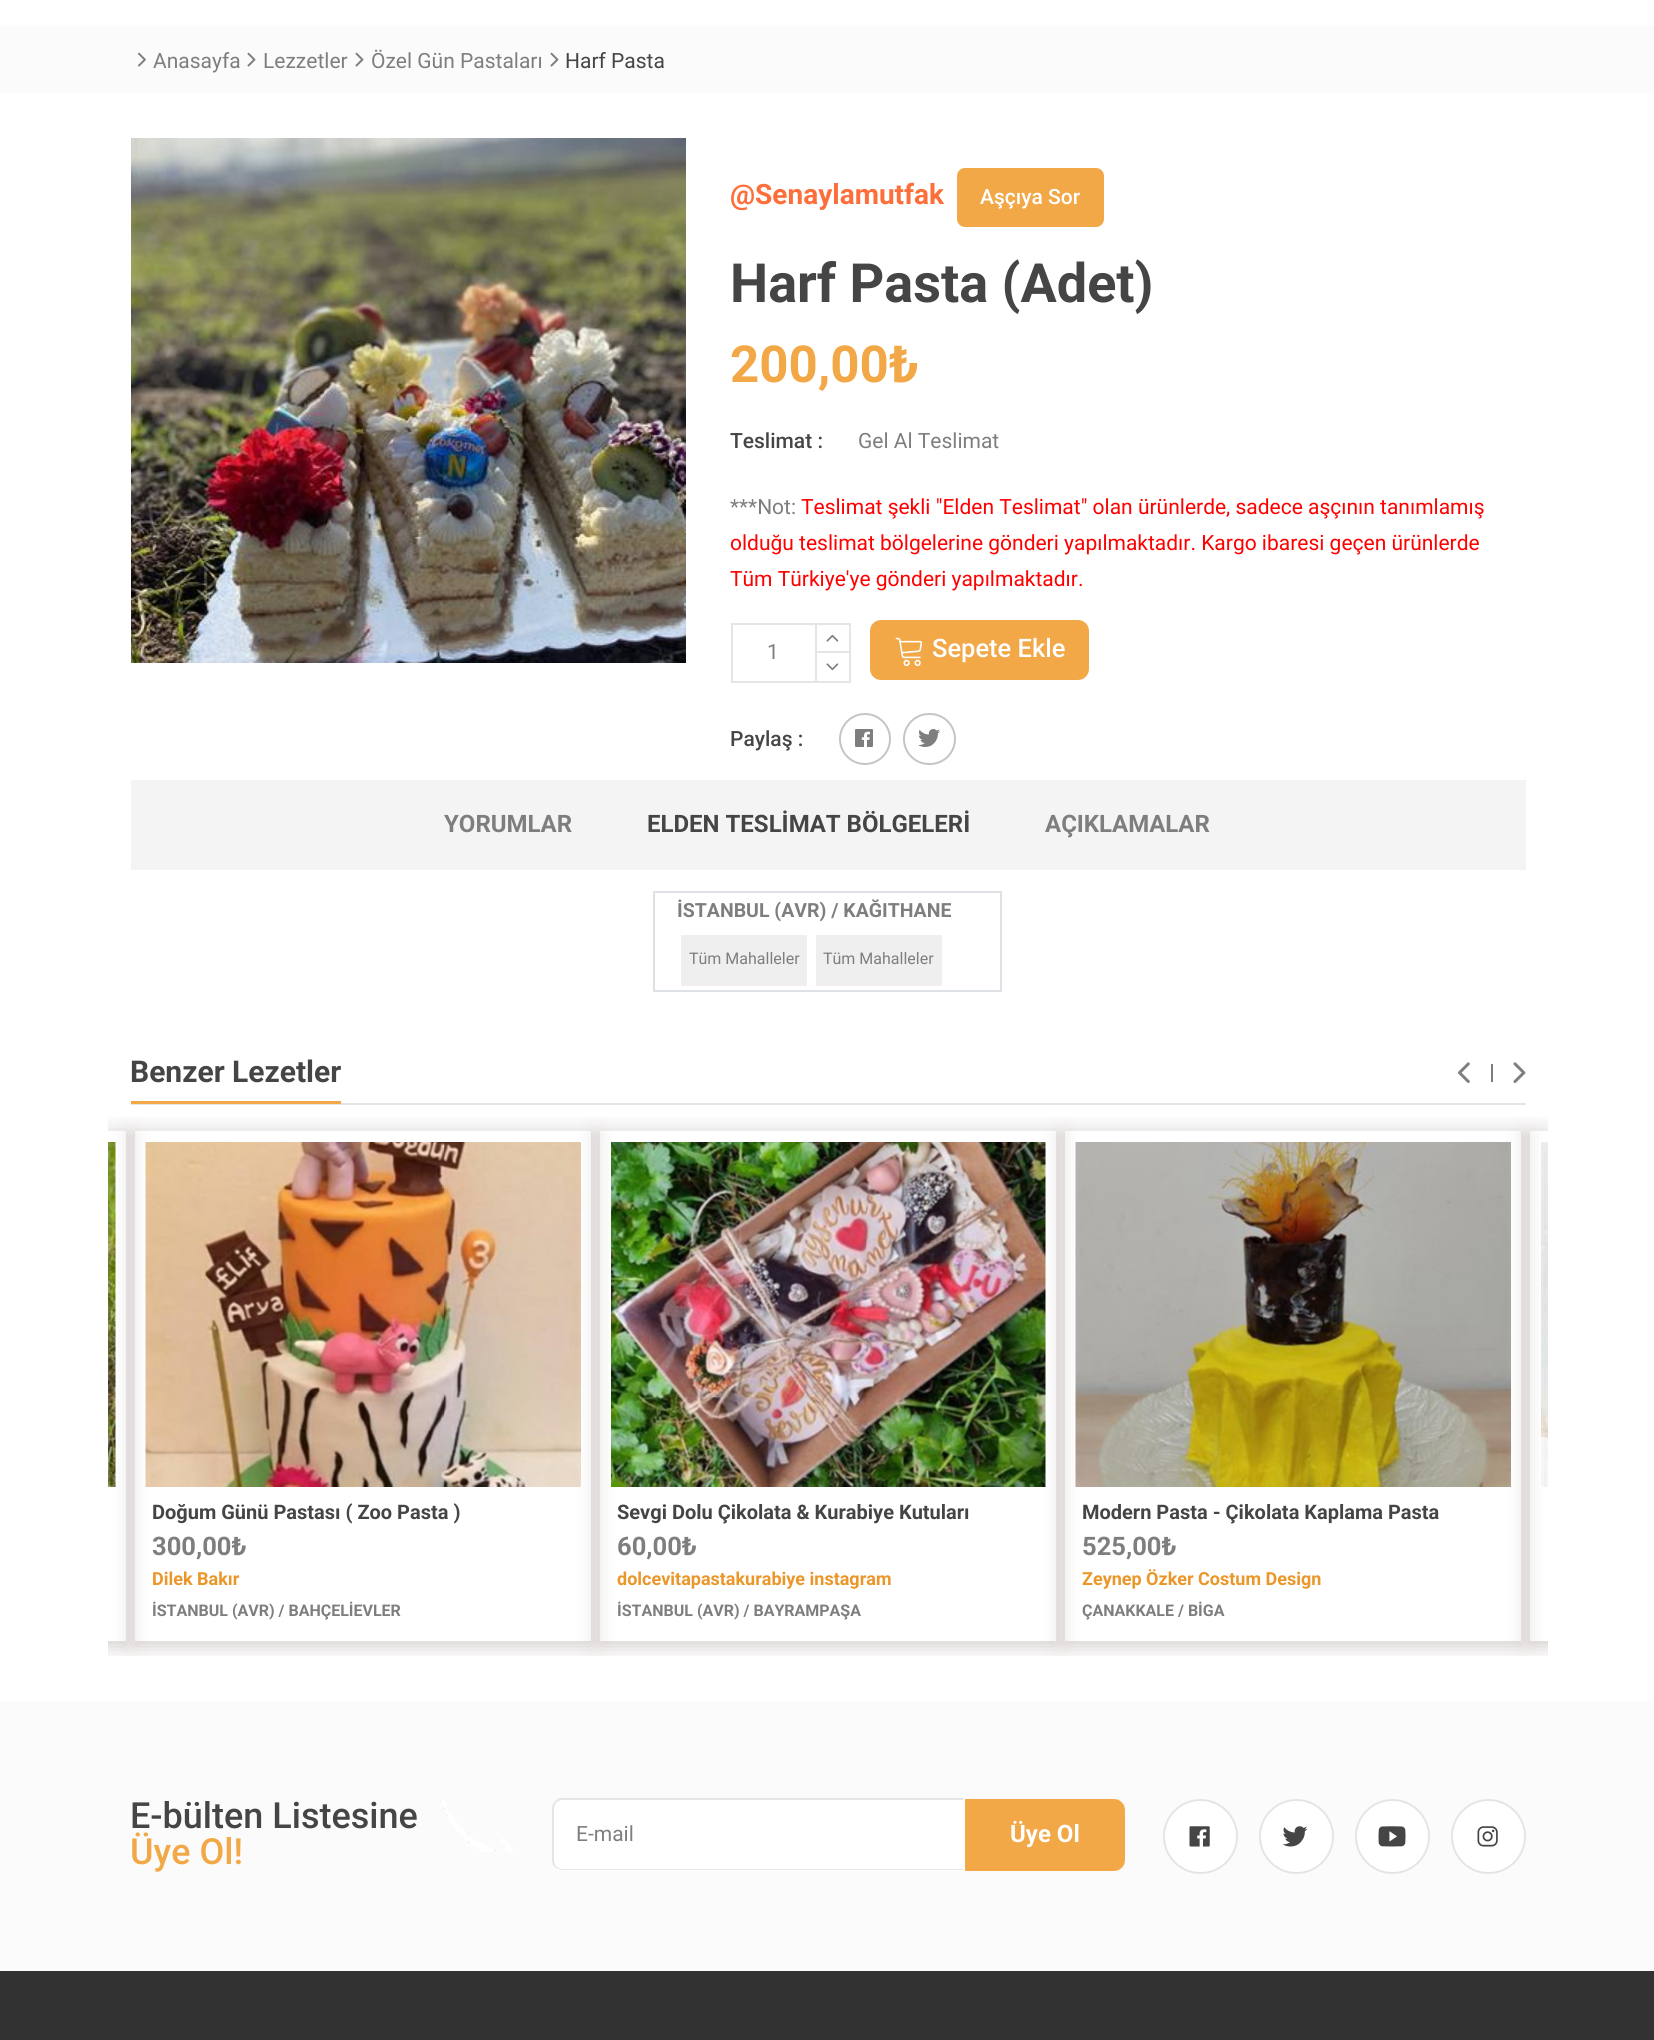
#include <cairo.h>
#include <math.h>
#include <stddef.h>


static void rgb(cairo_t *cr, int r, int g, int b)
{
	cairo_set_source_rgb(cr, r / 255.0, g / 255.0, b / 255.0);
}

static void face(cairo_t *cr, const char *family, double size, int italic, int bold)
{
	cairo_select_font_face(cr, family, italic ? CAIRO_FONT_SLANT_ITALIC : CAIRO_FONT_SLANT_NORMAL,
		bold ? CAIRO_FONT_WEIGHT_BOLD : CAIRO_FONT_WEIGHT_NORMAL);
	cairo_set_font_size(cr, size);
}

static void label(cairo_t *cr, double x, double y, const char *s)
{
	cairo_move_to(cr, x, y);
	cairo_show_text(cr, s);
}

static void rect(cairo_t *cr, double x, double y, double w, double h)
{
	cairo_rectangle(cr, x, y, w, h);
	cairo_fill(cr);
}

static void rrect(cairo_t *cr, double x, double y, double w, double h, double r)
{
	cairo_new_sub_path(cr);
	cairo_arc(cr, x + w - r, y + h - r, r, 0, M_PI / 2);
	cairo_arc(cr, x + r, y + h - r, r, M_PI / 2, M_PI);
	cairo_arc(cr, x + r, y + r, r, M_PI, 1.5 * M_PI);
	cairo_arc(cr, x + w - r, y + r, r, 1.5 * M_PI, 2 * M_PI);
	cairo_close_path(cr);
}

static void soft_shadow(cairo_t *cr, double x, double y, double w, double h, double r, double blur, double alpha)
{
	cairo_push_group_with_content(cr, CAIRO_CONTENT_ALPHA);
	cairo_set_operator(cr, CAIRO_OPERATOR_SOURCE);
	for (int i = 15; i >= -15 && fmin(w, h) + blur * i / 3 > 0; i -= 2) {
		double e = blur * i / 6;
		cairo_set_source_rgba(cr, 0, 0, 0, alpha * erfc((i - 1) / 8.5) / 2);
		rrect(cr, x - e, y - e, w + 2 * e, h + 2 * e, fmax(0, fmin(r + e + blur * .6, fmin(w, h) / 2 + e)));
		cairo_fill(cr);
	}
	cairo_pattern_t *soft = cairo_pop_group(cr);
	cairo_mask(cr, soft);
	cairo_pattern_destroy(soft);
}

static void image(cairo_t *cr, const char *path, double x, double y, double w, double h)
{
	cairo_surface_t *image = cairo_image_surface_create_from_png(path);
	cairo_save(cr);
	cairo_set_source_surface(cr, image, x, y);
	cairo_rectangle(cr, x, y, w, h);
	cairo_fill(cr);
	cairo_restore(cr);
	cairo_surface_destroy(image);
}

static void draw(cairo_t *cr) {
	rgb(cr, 255, 255, 255);
	cairo_paint(cr);
	rgb(cr, 251, 251, 251);
	rect(cr, 0, 26, 1654, 67);
	image(cr, "image0.png", 138, 52, 8, 15);
	face(cr, "Roboto", 21, 0, 0);
	rgb(cr, 126, 126, 126);
	label(cr, 153, 68, "Anasayfa");
	image(cr, "image1.png", 247, 52, 9, 15);
	label(cr, 263, 68, "Lezzetler");
	image(cr, "image1.png", 355, 52, 9, 15);
	label(cr, 371, 68, "Özel Gün Pastaları");
	image(cr, "image1.png", 550, 52, 9, 15);
	rgb(cr, 69, 69, 69);
	label(cr, 565, 68, "Harf Pasta");
	image(cr, "image2.png", 131, 138, 555, 525);
	face(cr, "Roboto", 28, 0, 1);
	rgb(cr, 254, 110, 58);
	label(cr, 730, 204, "@Senaylamutfak");
	rgb(cr, 243, 168, 71);
	rrect(cr, 958, 169, 145, 57, 7);
	cairo_fill_preserve(cr);
	cairo_stroke(cr);
	face(cr, "Roboto Medium", 21, 0, 0);
	rgb(cr, 255, 255, 255);
	label(cr, 980, 204, "Aşçıya Sor");
	face(cr, "Roboto", 54, 0, 1);
	rgb(cr, 69, 69, 69);
	label(cr, 730, 302, "Harf Pasta (Adet)");
	face(cr, "Roboto", 51, 0, 1);
	rgb(cr, 243, 168, 71);
	label(cr, 730, 382, "200,00₺");
	face(cr, "Roboto Medium", 21, 0, 0);
	rgb(cr, 69, 69, 69);
	label(cr, 730, 448, "Teslimat :");
	face(cr, "Roboto", 21, 0, 0);
	rgb(cr, 126, 126, 126);
	label(cr, 858, 448, "Gel Al Teslimat");
	label(cr, 730, 514, "***Not:");
	rgb(cr, 255, 0, 0);
	label(cr, 801, 514, "Teslimat şekli \"Elden Teslimat\" olan ürünlerde, sadece aşçının tanımlamış");
	label(cr, 730, 550, "olduğu teslimat bölgelerine gönderi yapılmaktadır. Kargo ibaresi geçen ürünlerde");
	label(cr, 730, 586, "Tüm Türkiye'ye gönderi yapılmaktadır.");
	cairo_rectangle(cr, 732, 624, 118, 58);
	rgb(cr, 229, 229, 229);
	cairo_stroke(cr);
	rgb(cr, 126, 126, 126);
	label(cr, 767, 659, "1");
	cairo_rectangle(cr, 816, 624, 34, 28);
	rgb(cr, 229, 229, 229);
	cairo_stroke(cr);
	image(cr, "image3.png", 826, 634, 13, 8);
	cairo_rectangle(cr, 816, 652, 34, 30);
	cairo_stroke(cr);
	image(cr, "image4.png", 826, 663, 13, 8);
	rgb(cr, 243, 168, 71);
	rrect(cr, 871, 621, 217, 58, 10);
	cairo_fill_preserve(cr);
	cairo_stroke(cr);
	image(cr, "image5.png", 895, 637, 28, 30);
	face(cr, "Roboto Medium", 25.5, 0, 0);
	rgb(cr, 255, 255, 255);
	label(cr, 932, 657, "Sepete Ekle");
	face(cr, "Roboto Medium", 21, 0, 0);
	rgb(cr, 69, 69, 69);
	label(cr, 730, 746, "Paylaş :");
	cairo_new_path(cr);
	cairo_arc(cr, 865, 739, 25, 0, 2 * M_PI);
	rgb(cr, 197, 197, 197);
	cairo_stroke(cr);
	image(cr, "image6.png", 855, 729, 18, 18);
	rrect(cr, 904, 714, 51, 50, 25);
	cairo_stroke(cr);
	image(cr, "image7.png", 918, 729, 22, 18);
	rgb(cr, 244, 244, 244);
	rect(cr, 131, 780, 1395, 90);
	face(cr, "Roboto", 24, 0, 1);
	rgb(cr, 126, 126, 126);
	label(cr, 444, 832, "YORUMLAR");
	rgb(cr, 69, 69, 69);
	label(cr, 647, 832, "ELDEN TESLİMAT BÖLGELERİ");
	rgb(cr, 126, 126, 126);
	label(cr, 1045, 832, "AÇIKLAMALAR");
	cairo_rectangle(cr, 654, 892, 347, 99);
	rgb(cr, 222, 226, 230);
	cairo_stroke(cr);
	face(cr, "Roboto", 19.5, 0, 1);
	rgb(cr, 126, 126, 126);
	label(cr, 677, 917, "İSTANBUL (AVR) / KAĞITHANE");
	rgb(cr, 239, 239, 239);
	rect(cr, 681, 935, 126, 51);
	face(cr, "Roboto", 16, 0, 0);
	rgb(cr, 126, 126, 126);
	label(cr, 689, 964, "Tüm Mahalleler");
	rgb(cr, 239, 239, 239);
	rect(cr, 816, 935, 126, 51);
	rgb(cr, 126, 126, 126);
	label(cr, 823, 964, "Tüm Mahalleler");
	rgb(cr, 229, 229, 229);
	rect(cr, 131, 1103, 1395, 2);
	face(cr, "Roboto", 30, 0, 1);
	rgb(cr, 69, 69, 69);
	label(cr, 130, 1082, "Benzer Lezetler");
	rgb(cr, 243, 168, 71);
	rect(cr, 131, 1101, 210, 3);
	image(cr, "image8.png", 1457, 1062, 13, 21);
	rgb(cr, 126, 126, 126);
	rect(cr, 1491, 1064, 2, 18);
	image(cr, "image9.png", 1513, 1062, 13, 21);
	cairo_save(cr);
	cairo_rectangle(cr, 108, 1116, 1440, 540);
	cairo_clip(cr);
	cairo_set_fill_rule(cr, CAIRO_FILL_RULE_EVEN_ODD);
	cairo_new_path(cr);
	cairo_move_to(cr, 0, 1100);
	cairo_line_to(cr, 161, 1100);
	cairo_line_to(cr, 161, 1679);
	cairo_line_to(cr, 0, 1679);
	cairo_close_path(cr);
	cairo_move_to(cr, -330, 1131);
	cairo_line_to(cr, 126, 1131);
	cairo_line_to(cr, 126, 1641);
	cairo_line_to(cr, -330, 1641);
	cairo_close_path(cr);
	cairo_clip(cr);
	rgb(cr, 211, 204, 203);
	soft_shadow(cr, -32, 1133, 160, 513, 0, 10.5, 1);
	cairo_restore(cr);
	cairo_save(cr);
	cairo_rectangle(cr, 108, 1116, 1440, 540);
	cairo_clip(cr);
	cairo_set_fill_rule(cr, CAIRO_FILL_RULE_EVEN_ODD);
	cairo_new_path(cr);
	cairo_move_to(cr, 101, 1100);
	cairo_line_to(cr, 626, 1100);
	cairo_line_to(cr, 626, 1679);
	cairo_line_to(cr, 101, 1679);
	cairo_close_path(cr);
	cairo_move_to(cr, 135, 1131);
	cairo_line_to(cr, 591, 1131);
	cairo_line_to(cr, 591, 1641);
	cairo_line_to(cr, 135, 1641);
	cairo_close_path(cr);
	cairo_clip(cr);
	rgb(cr, 211, 204, 203);
	soft_shadow(cr, 134, 1133, 459, 513, 0, 10.5, 1);
	cairo_restore(cr);
	image(cr, "image10.png", 108, 1142, 8, 345);
	cairo_save(cr);
	cairo_rectangle(cr, 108, 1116, 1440, 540);
	cairo_clip(cr);
	cairo_set_fill_rule(cr, CAIRO_FILL_RULE_EVEN_ODD);
	cairo_new_path(cr);
	cairo_move_to(cr, 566, 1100);
	cairo_line_to(cr, 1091, 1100);
	cairo_line_to(cr, 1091, 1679);
	cairo_line_to(cr, 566, 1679);
	cairo_close_path(cr);
	cairo_move_to(cr, 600, 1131);
	cairo_line_to(cr, 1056, 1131);
	cairo_line_to(cr, 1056, 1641);
	cairo_line_to(cr, 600, 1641);
	cairo_close_path(cr);
	cairo_clip(cr);
	rgb(cr, 211, 204, 203);
	soft_shadow(cr, 599, 1133, 459, 513, 0, 10.5, 1);
	cairo_restore(cr);
	image(cr, "image11.png", 145, 1142, 436, 345);
	face(cr, "Roboto", 20, 0, 1);
	rgb(cr, 69, 69, 69);
	label(cr, 152, 1519, "Doğum Günü Pastası ( Zoo Pasta )");
	face(cr, "Roboto", 25.5, 0, 1);
	rgb(cr, 126, 126, 126);
	label(cr, 152, 1555, "300,00₺");
	face(cr, "Roboto", 18, 0, 1);
	rgb(cr, 234, 150, 41);
	label(cr, 152, 1585, "Dilek Bakır");
	face(cr, "Roboto", 16, 0, 1);
	rgb(cr, 126, 126, 126);
	label(cr, 152, 1616, "İSTANBUL (AVR) / BAHÇELİEVLER");
	cairo_save(cr);
	cairo_rectangle(cr, 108, 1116, 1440, 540);
	cairo_clip(cr);
	cairo_set_fill_rule(cr, CAIRO_FILL_RULE_EVEN_ODD);
	cairo_new_path(cr);
	cairo_move_to(cr, 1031, 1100);
	cairo_line_to(cr, 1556, 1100);
	cairo_line_to(cr, 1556, 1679);
	cairo_line_to(cr, 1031, 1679);
	cairo_close_path(cr);
	cairo_move_to(cr, 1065, 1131);
	cairo_line_to(cr, 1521, 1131);
	cairo_line_to(cr, 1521, 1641);
	cairo_line_to(cr, 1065, 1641);
	cairo_close_path(cr);
	cairo_clip(cr);
	rgb(cr, 211, 204, 203);
	soft_shadow(cr, 1064, 1133, 459, 513, 0, 10.5, 1);
	cairo_restore(cr);
	image(cr, "image12.png", 611, 1142, 435, 345);
	face(cr, "Roboto", 20, 0, 1);
	rgb(cr, 69, 69, 69);
	label(cr, 617, 1519, "Sevgi Dolu Çikolata & Kurabiye Kutuları");
	face(cr, "Roboto", 25.5, 0, 1);
	rgb(cr, 126, 126, 126);
	label(cr, 617, 1555, "60,00₺");
	face(cr, "Roboto", 18, 0, 1);
	rgb(cr, 234, 150, 41);
	label(cr, 617, 1585, "dolcevitapastakurabiye instagram");
	face(cr, "Roboto", 16, 0, 1);
	rgb(cr, 126, 126, 126);
	label(cr, 617, 1616, "İSTANBUL (AVR) / BAYRAMPAŞA");
	cairo_save(cr);
	cairo_rectangle(cr, 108, 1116, 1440, 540);
	cairo_clip(cr);
	cairo_set_fill_rule(cr, CAIRO_FILL_RULE_EVEN_ODD);
	cairo_new_path(cr);
	cairo_move_to(cr, 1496, 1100);
	cairo_line_to(cr, 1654, 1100);
	cairo_line_to(cr, 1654, 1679);
	cairo_line_to(cr, 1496, 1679);
	cairo_close_path(cr);
	cairo_move_to(cr, 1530, 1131);
	cairo_line_to(cr, 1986, 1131);
	cairo_line_to(cr, 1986, 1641);
	cairo_line_to(cr, 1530, 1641);
	cairo_close_path(cr);
	cairo_clip(cr);
	rgb(cr, 211, 204, 203);
	soft_shadow(cr, 1529, 1133, 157, 513, 0, 10.5, 1);
	cairo_restore(cr);
	image(cr, "image13.png", 1075, 1142, 436, 345);
	face(cr, "Roboto", 20, 0, 1);
	rgb(cr, 69, 69, 69);
	label(cr, 1082, 1519, "Modern Pasta - Çikolata Kaplama Pasta");
	face(cr, "Roboto", 25.5, 0, 1);
	rgb(cr, 126, 126, 126);
	label(cr, 1082, 1555, "525,00₺");
	face(cr, "Roboto", 18, 0, 1);
	rgb(cr, 234, 150, 41);
	label(cr, 1082, 1585, "Zeynep Özker Costum Design");
	face(cr, "Roboto", 16, 0, 1);
	rgb(cr, 126, 126, 126);
	label(cr, 1082, 1616, "ÇANAKKALE / BİGA");
	image(cr, "image14.png", 1541, 1142, 7, 345);
	rgb(cr, 251, 251, 251);
	rect(cr, 0, 1701, 1654, 270);
	face(cr, "Roboto Medium", 36, 0, 0);
	rgb(cr, 69, 69, 69);
	label(cr, 130, 1828, "E-bülten Listesine");
	rgb(cr, 243, 168, 71);
	label(cr, 130, 1864, "Üye Ol!");
	image(cr, "image15.png", 439, 1799, 74, 53);
	rgb(cr, 255, 255, 255);
	cairo_new_path(cr);
	cairo_move_to(cr, 563, 1799);
	cairo_line_to(cr, 965, 1799);
	cairo_line_to(cr, 965, 1871);
	cairo_line_to(cr, 563, 1871);
	cairo_curve_to(cr, 557, 1871, 552, 1866, 552, 1860);
	cairo_line_to(cr, 552, 1810);
	cairo_curve_to(cr, 552, 1804, 557, 1799, 563, 1799);
	cairo_close_path(cr);
	cairo_fill(cr);
	rgb(cr, 229, 229, 229);
	cairo_new_path(cr);
	cairo_move_to(cr, 562, 1800);
	cairo_curve_to(cr, 560, 1800, 558, 1801, 556, 1803);
	cairo_line_to(cr, 555, 1801);
	cairo_line_to(cr, 559, 1798);
	cairo_line_to(cr, 964, 1798);
	cairo_line_to(cr, 963, 1800);
	cairo_close_path(cr);
	cairo_fill(cr);
	cairo_new_path(cr);
	cairo_move_to(cr, 964, 1870);
	cairo_line_to(cr, 963, 1869);
	cairo_line_to(cr, 562, 1869);
	cairo_curve_to(cr, 560, 1869, 558, 1868, 556, 1866);
	cairo_line_to(cr, 555, 1867);
	cairo_curve_to(cr, 557, 1869, 560, 1870, 562, 1870);
	cairo_close_path(cr);
	cairo_fill(cr);
	cairo_new_path(cr);
	cairo_move_to(cr, 552, 1809);
	cairo_line_to(cr, 552, 1860);
	cairo_curve_to(cr, 552, 1863, 553, 1866, 555, 1867);
	cairo_line_to(cr, 556, 1866);
	cairo_curve_to(cr, 555, 1865, 554, 1862, 554, 1860);
	cairo_line_to(cr, 554, 1809);
	cairo_curve_to(cr, 554, 1807, 555, 1804, 556, 1803);
	cairo_line_to(cr, 555, 1801);
	cairo_curve_to(cr, 553, 1803, 552, 1806, 552, 1809);
	cairo_close_path(cr);
	cairo_fill(cr);
	face(cr, "Roboto", 21, 0, 0);
	rgb(cr, 126, 126, 126);
	label(cr, 576, 1841, "E-mail");
	rgb(cr, 243, 168, 71);
	cairo_new_path(cr);
	cairo_move_to(cr, 966, 1800);
	cairo_line_to(cr, 1114, 1800);
	cairo_curve_to(cr, 1119.5, 1800, 1124, 1804.5, 1124, 1810);
	cairo_line_to(cr, 1124, 1860);
	cairo_curve_to(cr, 1124, 1865.5, 1119.5, 1870, 1114, 1870);
	cairo_line_to(cr, 966, 1870);
	cairo_close_path(cr);
	cairo_fill_preserve(cr);
	cairo_stroke(cr);
	face(cr, "Roboto", 24, 0, 1);
	rgb(cr, 255, 255, 255);
	label(cr, 1010, 1842, "Üye Ol");
	cairo_new_path(cr);
	cairo_arc(cr, 1200.5, 1836.5, 36.5, 0, 2 * M_PI);
	cairo_fill_preserve(cr);
	rgb(cr, 229, 229, 229);
	cairo_stroke(cr);
	image(cr, "image16.png", 1189, 1826, 21, 21);
	rgb(cr, 255, 255, 255);
	cairo_arc(cr, 1296.5, 1836.5, 36.5, 0, 2 * M_PI);
	cairo_fill_preserve(cr);
	rgb(cr, 229, 229, 229);
	cairo_stroke(cr);
	image(cr, "image17.png", 1282, 1826, 26, 21);
	rgb(cr, 255, 255, 255);
	cairo_arc(cr, 1392.5, 1836.5, 36.5, 0, 2 * M_PI);
	cairo_fill_preserve(cr);
	rgb(cr, 229, 229, 229);
	cairo_stroke(cr);
	image(cr, "image18.png", 1378, 1826, 28, 21);
	rgb(cr, 255, 255, 255);
	cairo_arc(cr, 1488.5, 1836.5, 36.5, 0, 2 * M_PI);
	cairo_fill_preserve(cr);
	rgb(cr, 229, 229, 229);
	cairo_stroke(cr);
	image(cr, "image19.png", 1477, 1826, 21, 21);
	rgb(cr, 50, 50, 50);
	rect(cr, 0, 1971, 1654, 69);
}

int main(void) {
	cairo_surface_t *surface = cairo_image_surface_create(CAIRO_FORMAT_RGB24, 1654, 2040);
	cairo_t *cr = cairo_create(surface);
	cairo_font_options_t *options = cairo_font_options_create();
	cairo_font_options_set_hint_metrics(options, CAIRO_HINT_METRICS_OFF);
	cairo_font_options_set_hint_style(options, CAIRO_HINT_STYLE_NONE);
	cairo_set_font_options(cr, options);
	cairo_set_miter_limit(cr, 4);
	draw(cr);
	cairo_surface_write_to_png(surface, "render.png");
	cairo_font_options_destroy(options);
	cairo_destroy(cr);
	cairo_surface_destroy(surface);
	return 0;
}
